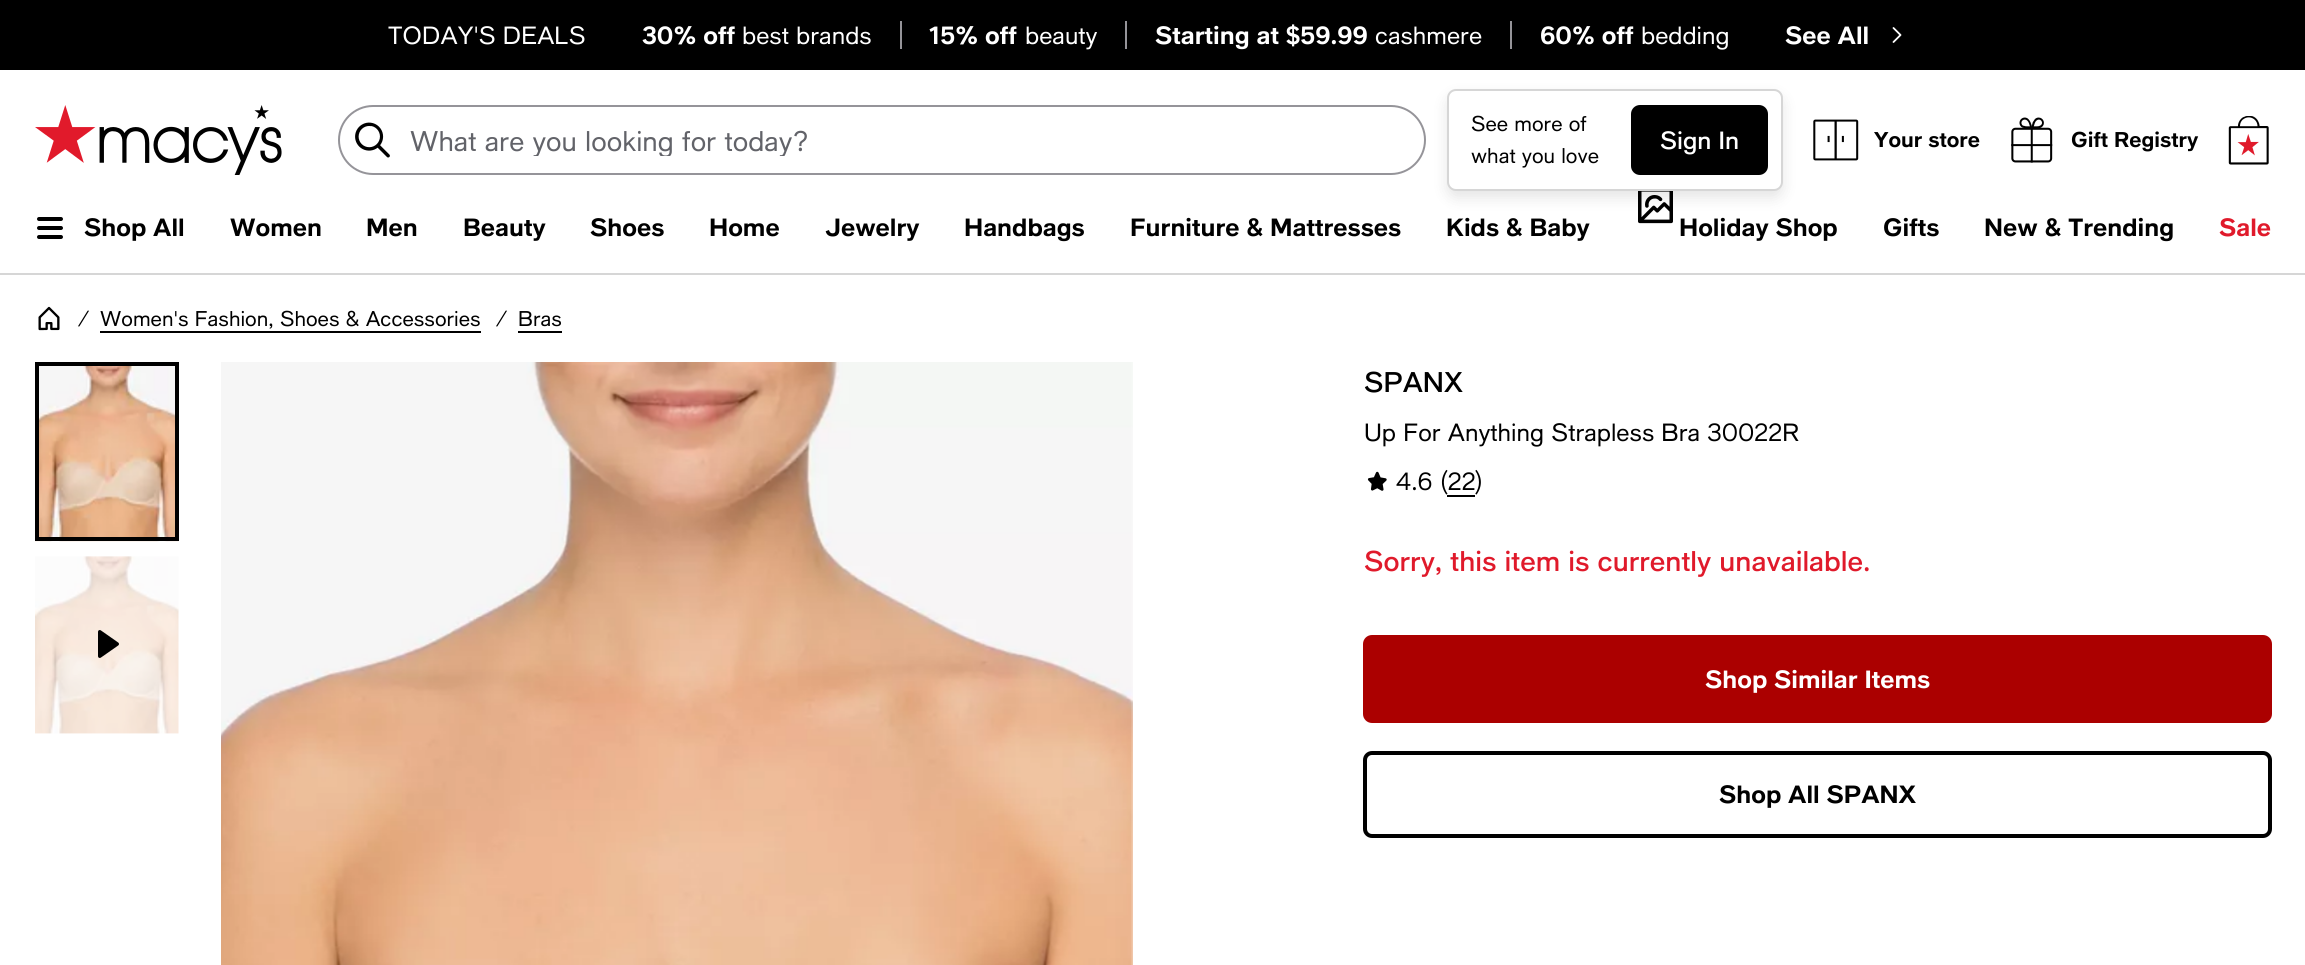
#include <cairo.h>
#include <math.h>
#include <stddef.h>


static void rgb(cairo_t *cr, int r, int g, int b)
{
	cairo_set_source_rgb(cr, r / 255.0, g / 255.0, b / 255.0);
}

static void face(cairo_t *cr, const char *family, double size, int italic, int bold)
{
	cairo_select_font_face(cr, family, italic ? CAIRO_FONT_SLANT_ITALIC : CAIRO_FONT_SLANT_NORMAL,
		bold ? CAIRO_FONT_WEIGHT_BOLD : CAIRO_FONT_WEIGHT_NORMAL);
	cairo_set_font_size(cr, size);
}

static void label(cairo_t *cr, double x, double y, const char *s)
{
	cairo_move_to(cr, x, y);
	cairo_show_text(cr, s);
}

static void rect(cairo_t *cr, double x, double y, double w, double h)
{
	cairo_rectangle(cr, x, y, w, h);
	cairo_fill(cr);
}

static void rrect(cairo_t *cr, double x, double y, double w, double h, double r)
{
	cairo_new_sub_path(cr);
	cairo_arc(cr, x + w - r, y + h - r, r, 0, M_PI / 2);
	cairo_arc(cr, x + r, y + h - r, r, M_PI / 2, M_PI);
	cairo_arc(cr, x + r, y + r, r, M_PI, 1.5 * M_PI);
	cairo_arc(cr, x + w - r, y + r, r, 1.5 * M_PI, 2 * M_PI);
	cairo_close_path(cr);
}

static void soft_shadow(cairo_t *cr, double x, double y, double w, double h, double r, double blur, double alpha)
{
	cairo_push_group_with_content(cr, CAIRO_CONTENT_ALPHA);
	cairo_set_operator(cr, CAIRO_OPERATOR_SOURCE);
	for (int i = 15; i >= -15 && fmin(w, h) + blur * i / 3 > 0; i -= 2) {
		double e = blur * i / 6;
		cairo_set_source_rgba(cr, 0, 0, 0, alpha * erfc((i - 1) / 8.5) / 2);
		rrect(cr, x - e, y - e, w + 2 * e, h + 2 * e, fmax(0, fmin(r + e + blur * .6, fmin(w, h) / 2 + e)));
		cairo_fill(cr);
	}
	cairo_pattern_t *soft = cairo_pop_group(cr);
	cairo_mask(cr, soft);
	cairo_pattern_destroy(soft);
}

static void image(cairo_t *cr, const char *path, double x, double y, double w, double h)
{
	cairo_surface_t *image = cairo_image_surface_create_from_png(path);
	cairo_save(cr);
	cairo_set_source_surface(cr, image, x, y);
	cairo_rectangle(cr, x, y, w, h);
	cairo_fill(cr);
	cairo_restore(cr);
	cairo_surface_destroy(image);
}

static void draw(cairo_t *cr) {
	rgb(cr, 255, 255, 255);
	cairo_paint(cr);
	rgb(cr, 0, 0, 0);
	rect(cr, 0, 0, 2305, 70);
	face(cr, "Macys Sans", 24.5, 0, 0);
	rgb(cr, 255, 255, 255);
	label(cr, 388, 44, "TODAY'S DEALS");
	face(cr, "Macys Sans", 24.5, 0, 1);
	label(cr, 642, 44, "30% off");
	face(cr, "Macys Sans", 24.5, 0, 0);
	label(cr, 742, 44, "best brands");
	rgb(cr, 149, 148, 153);
	rect(cr, 900, 21, 2, 28);
	face(cr, "Macys Sans", 24.5, 0, 1);
	rgb(cr, 255, 255, 255);
	label(cr, 929, 44, "15% off");
	face(cr, "Macys Sans", 24.5, 0, 0);
	label(cr, 1025, 44, "beauty");
	rgb(cr, 149, 148, 153);
	rect(cr, 1125, 21, 2, 28);
	face(cr, "Macys Sans", 24.5, 0, 1);
	rgb(cr, 255, 255, 255);
	label(cr, 1155, 44, "Starting at $59.99");
	face(cr, "Macys Sans", 24.5, 0, 0);
	label(cr, 1375, 44, "cashmere");
	rgb(cr, 149, 148, 153);
	rect(cr, 1510, 21, 2, 28);
	face(cr, "Macys Sans", 24.5, 0, 1);
	rgb(cr, 255, 255, 255);
	label(cr, 1540, 44, "60% off");
	face(cr, "Macys Sans", 24.5, 0, 0);
	label(cr, 1641, 44, "bedding");
	face(cr, "Macys Sans", 24.5, 0, 1);
	label(cr, 1785, 44, "See All");
	cairo_new_path(cr);
	cairo_move_to(cr, 1893.5, 28);
	cairo_line_to(cr, 1900.5, 35);
	cairo_line_to(cr, 1893.5, 42);
	cairo_set_line_width(cr, 1.8);
	cairo_set_line_cap(cr, CAIRO_LINE_CAP_ROUND);
	cairo_set_line_join(cr, CAIRO_LINE_JOIN_ROUND);
	cairo_stroke(cr);
	image(cr, "image0.png", 35, 105, 247, 70);
	rrect(cr, 339, 106, 1086, 68, 34);
	rgb(cr, 149, 148, 153);
	cairo_set_line_width(cr, 2);
	cairo_set_line_cap(cr, CAIRO_LINE_CAP_BUTT);
	cairo_set_line_join(cr, CAIRO_LINE_JOIN_MITER);
	cairo_stroke(cr);
	image(cr, "image1.png", 355, 122, 35, 36);
	cairo_save(cr);
	cairo_rectangle(cr, 410, 124, 994, 32);
	cairo_clip(cr);
	face(cr, "Macys Sans", 28, 0, 0);
	rgb(cr, 98, 99, 105);
	label(cr, 410, 151, "What are you looking for today?");
	cairo_restore(cr);
	image(cr, "image5.png", 1638, 191, 35, 33);
	rgb(cr, 0, 0, 0);
	soft_shadow(cr, 1447, 96, 336, 102, 9, 7, 0.1);
	rgb(cr, 255, 255, 255);
	rrect(cr, 1448, 90, 334, 100, 8);
	cairo_fill_preserve(cr);
	rgb(cr, 214, 214, 214);
	cairo_stroke(cr);
	face(cr, "Macys Sans", 21, 0, 0);
	rgb(cr, 0, 0, 0);
	label(cr, 1471, 131, "See more of");
	label(cr, 1471, 163, "what you love");
	rrect(cr, 1631, 105, 137, 70, 9);
	cairo_fill(cr);
	face(cr, "Macys Sans Medium", 24.5, 0, 0);
	rgb(cr, 255, 255, 255);
	label(cr, 1660, 149, "Sign In");
	image(cr, "image2.png", 1813, 119, 46, 42);
	face(cr, "Macys Sans", 21, 0, 1);
	rgb(cr, 0, 0, 0);
	label(cr, 1874, 147, "Your store");
	image(cr, "image3.png", 2011, 117, 42, 46);
	label(cr, 2071, 147, "Gift Registry");
	image(cr, "image4.png", 2228, 116, 41, 49);
	rgb(cr, 214, 214, 214);
	rect(cr, 0, 273, 2305, 2);
	rgb(cr, 0, 0, 0);
	rrect(cr, 37, 217, 26, 4, 2);
	cairo_fill(cr);
	rrect(cr, 37, 226, 26, 4, 2);
	cairo_fill(cr);
	rrect(cr, 37, 235, 26, 4, 2);
	cairo_fill(cr);
	face(cr, "Macys Sans", 24.5, 0, 1);
	label(cr, 84, 236, "Shop All");
	label(cr, 230, 236, "Women");
	label(cr, 366, 236, "Men");
	label(cr, 463, 236, "Beauty");
	label(cr, 590, 236, "Shoes");
	label(cr, 709, 236, "Home");
	label(cr, 825, 236, "Jewelry");
	label(cr, 964, 236, "Handbags");
	label(cr, 1130, 236, "Furniture & Mattresses");
	label(cr, 1446, 236, "Kids & Baby");
	label(cr, 1679, 236, "Holiday Shop");
	label(cr, 1883, 236, "Gifts");
	label(cr, 1984, 236, "New & Trending");
	rgb(cr, 224, 26, 43);
	label(cr, 2219, 236, "Sale");
	image(cr, "image6.png", 38, 306, 22, 25);
	face(cr, "Macys Sans", 21, 1, 0);
	rgb(cr, 0, 0, 0);
	label(cr, 77, 326, "/");
	face(cr, "Macys Sans", 21, 0, 0);
	label(cr, 100, 326, "Women's Fashion, Shoes & Accessories");
	rect(cr, 100, 331, 381, 2);
	face(cr, "Macys Sans", 21, 1, 0);
	label(cr, 495, 326, "/");
	face(cr, "Macys Sans", 21, 0, 0);
	label(cr, 518, 326, "Bras");
	rect(cr, 518, 331, 44, 2);
	image(cr, "image7.png", 35, 366, 144, 176);
	cairo_rectangle(cr, 37, 364, 140, 175);
	cairo_set_line_width(cr, 4);
	cairo_stroke(cr);
	image(cr, "image8.png", 35, 556, 144, 178);
	image(cr, "image9.png", 98, 630, 21, 28);
	image(cr, "image10.png", 221, 362, 912, 603);
	face(cr, "Macys Sans Medium", 28, 0, 0);
	label(cr, 1364, 392, "SPANX");
	face(cr, "Macys Sans", 24.5, 0, 0);
	label(cr, 1364, 441, "Up For Anything Strapless Bra 30022R");
	image(cr, "image11.png", 1367, 471, 20, 20);
	label(cr, 1396, 490, "4.6 (22");
	label(cr, 1475, 490, ")");
	rect(cr, 1447, 495, 28, 2);
	face(cr, "Macys Sans Medium", 28, 0, 0);
	rgb(cr, 224, 26, 43);
	label(cr, 1364, 571, "Sorry, this item is currently unavailable.");
	rgb(cr, 171, 0, 0);
	rrect(cr, 1363, 635, 909, 88, 9);
	cairo_fill(cr);
	face(cr, "Macys Sans", 24.5, 0, 1);
	rgb(cr, 255, 255, 255);
	label(cr, 1705, 688, "Shop Similar Items");
	rrect(cr, 1365, 753, 905, 83, 7);
	rgb(cr, 0, 0, 0);
	cairo_stroke(cr);
	label(cr, 1719, 803, "Shop All SPANX");
}

int main(void) {
	cairo_surface_t *surface = cairo_image_surface_create(CAIRO_FORMAT_RGB24, 2305, 965);
	cairo_t *cr = cairo_create(surface);
	cairo_font_options_t *options = cairo_font_options_create();
	cairo_font_options_set_hint_metrics(options, CAIRO_HINT_METRICS_OFF);
	cairo_font_options_set_hint_style(options, CAIRO_HINT_STYLE_NONE);
	cairo_set_font_options(cr, options);
	cairo_set_miter_limit(cr, 4);
	draw(cr);
	cairo_surface_write_to_png(surface, "render.png");
	cairo_font_options_destroy(options);
	cairo_destroy(cr);
	cairo_surface_destroy(surface);
	return 0;
}
